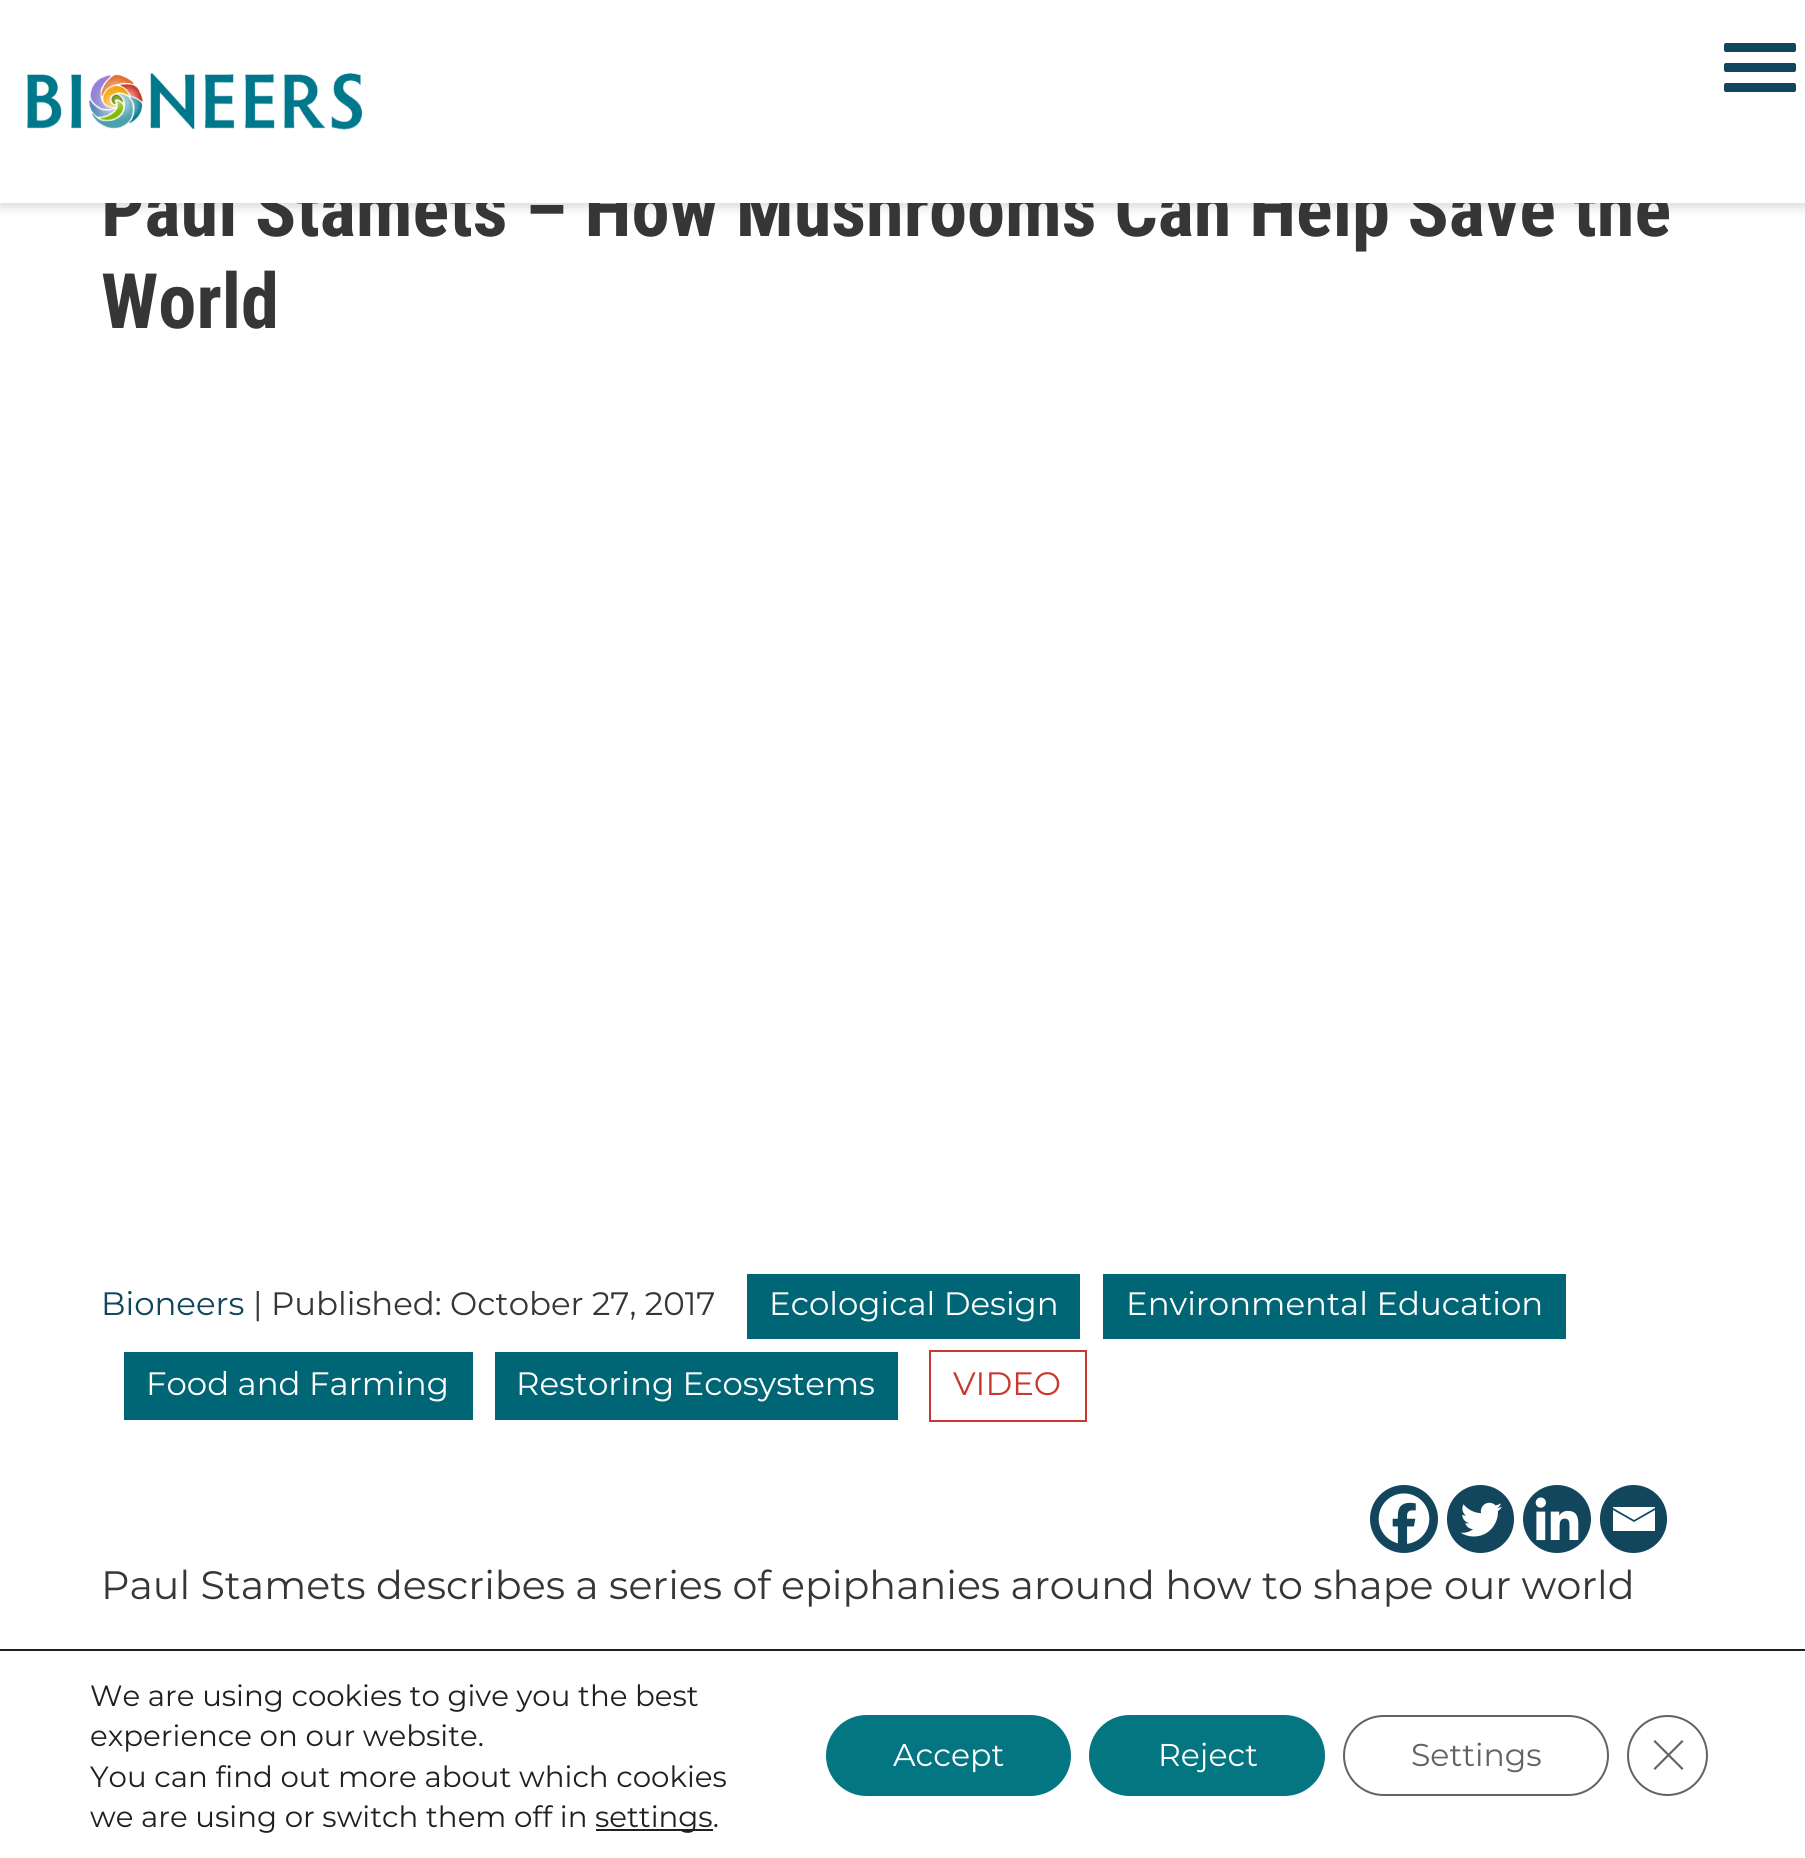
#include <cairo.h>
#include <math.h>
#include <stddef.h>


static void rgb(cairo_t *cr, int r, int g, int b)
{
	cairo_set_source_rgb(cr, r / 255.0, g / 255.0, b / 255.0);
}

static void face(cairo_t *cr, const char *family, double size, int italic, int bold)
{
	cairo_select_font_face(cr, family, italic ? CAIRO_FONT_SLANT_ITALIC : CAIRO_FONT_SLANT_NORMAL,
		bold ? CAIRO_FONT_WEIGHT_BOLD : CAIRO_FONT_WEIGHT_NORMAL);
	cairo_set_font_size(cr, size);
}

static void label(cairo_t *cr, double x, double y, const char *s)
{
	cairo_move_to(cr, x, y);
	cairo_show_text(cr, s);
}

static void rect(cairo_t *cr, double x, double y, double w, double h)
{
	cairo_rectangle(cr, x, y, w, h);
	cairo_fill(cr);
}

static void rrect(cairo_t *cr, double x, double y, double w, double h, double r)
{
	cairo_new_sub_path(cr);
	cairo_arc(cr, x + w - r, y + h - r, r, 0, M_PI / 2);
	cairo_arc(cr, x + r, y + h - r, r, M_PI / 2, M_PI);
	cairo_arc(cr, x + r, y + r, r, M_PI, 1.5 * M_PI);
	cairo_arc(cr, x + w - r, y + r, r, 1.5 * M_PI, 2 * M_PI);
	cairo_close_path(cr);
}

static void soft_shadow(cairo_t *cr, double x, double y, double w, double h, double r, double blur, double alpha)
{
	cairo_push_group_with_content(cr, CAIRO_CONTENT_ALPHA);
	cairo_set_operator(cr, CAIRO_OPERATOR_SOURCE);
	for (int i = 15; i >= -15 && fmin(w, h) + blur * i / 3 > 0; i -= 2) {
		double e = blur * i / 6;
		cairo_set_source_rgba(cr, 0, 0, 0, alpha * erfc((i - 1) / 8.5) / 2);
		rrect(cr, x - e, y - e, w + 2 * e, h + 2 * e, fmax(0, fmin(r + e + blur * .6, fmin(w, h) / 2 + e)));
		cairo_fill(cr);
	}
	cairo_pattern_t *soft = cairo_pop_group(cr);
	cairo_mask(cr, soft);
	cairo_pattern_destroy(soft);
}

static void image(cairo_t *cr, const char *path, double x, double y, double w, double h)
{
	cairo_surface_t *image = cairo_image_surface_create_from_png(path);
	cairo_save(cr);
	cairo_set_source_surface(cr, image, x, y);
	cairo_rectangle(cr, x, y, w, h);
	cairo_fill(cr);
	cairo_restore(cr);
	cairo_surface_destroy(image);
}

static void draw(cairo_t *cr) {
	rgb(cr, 255, 255, 255);
	cairo_paint(cr);
	rgb(cr, 0, 0, 0);
	soft_shadow(cr, 0, 5, 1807, 202, 0, 5.5, 0.15);
	face(cr, "Roboto Condensed", 76.5, 0, 1);
	rgb(cr, 54, 54, 54);
	label(cr, 101, 236, "Paul Stamets – How Mushrooms Can Help Save the");
	rgb(cr, 255, 255, 255);
	rect(cr, 0, 0, 1805, 203);
	rgb(cr, 18, 70, 92);
	rrect(cr, 1724, 43, 72, 9, 2);
	cairo_fill(cr);
	rrect(cr, 1724, 63, 72, 9, 2);
	cairo_fill(cr);
	rrect(cr, 1724, 83, 72, 9, 2);
	cairo_fill(cr);
	image(cr, "image0.png", 27, 73, 336, 57);
	rgb(cr, 54, 54, 54);
	label(cr, 101, 328, "World");
	face(cr, "Montserrat", 32.4, 0, 0);
	rgb(cr, 18, 70, 92);
	label(cr, 101, 1315, "Bioneers");
	rgb(cr, 54, 54, 54);
	label(cr, 253, 1315, "| Published: October 27, 2017");
	rgb(cr, 0, 101, 117);
	rect(cr, 747, 1274, 333, 65);
	rgb(cr, 255, 255, 255);
	label(cr, 769, 1315, "Ecological Design");
	rgb(cr, 0, 101, 117);
	rect(cr, 1103, 1274, 463, 65);
	rgb(cr, 255, 255, 255);
	label(cr, 1126, 1315, "Environmental Education");
	rgb(cr, 0, 101, 117);
	rect(cr, 124, 1352, 349, 68);
	rgb(cr, 255, 255, 255);
	label(cr, 146, 1395, "Food and Farming");
	rgb(cr, 0, 101, 117);
	rect(cr, 495, 1352, 403, 68);
	rgb(cr, 255, 255, 255);
	label(cr, 516, 1395, "Restoring Ecosystems");
	cairo_rectangle(cr, 930, 1351, 156, 70);
	rgb(cr, 201, 56, 46);
	cairo_stroke(cr);
	label(cr, 953, 1395, "VIDEO");
	rgb(cr, 18, 70, 92);
	cairo_new_path(cr);
	cairo_arc(cr, 1404, 1519, 34, 0, 2 * M_PI);
	cairo_fill(cr);
	image(cr, "image1.png", 1378, 1493, 52, 51);
	rrect(cr, 1447, 1485, 67, 68, 33.5);
	cairo_fill(cr);
	image(cr, "image2.png", 1460, 1502, 42, 35);
	cairo_arc(cr, 1557, 1519, 34, 0, 2 * M_PI);
	cairo_fill(cr);
	image(cr, "image3.png", 1535, 1497, 44, 44);
	rrect(cr, 1600, 1485, 67, 68, 33.5);
	cairo_fill(cr);
	rgb(cr, 255, 255, 255);
	cairo_new_path(cr);
	cairo_move_to(cr, 1611, 1507);
	cairo_line_to(cr, 1655, 1507);
	cairo_line_to(cr, 1655, 1508);
	cairo_line_to(cr, 1634, 1520);
	cairo_line_to(cr, 1613, 1508);
	cairo_line_to(cr, 1613, 1507);
	cairo_move_to(cr, 1613, 1510);
	cairo_line_to(cr, 1634, 1522);
	cairo_line_to(cr, 1655, 1510);
	cairo_line_to(cr, 1655, 1531);
	cairo_line_to(cr, 1613, 1531);
	cairo_line_to(cr, 1613, 1510);
	cairo_fill(cr);
	face(cr, "Montserrat", 39.6, 0, 0);
	rgb(cr, 54, 54, 54);
	label(cr, 101, 1599, "Paul Stamets describes a series of epiphanies around how to shape our world");
	rgb(cr, 32, 32, 32);
	rect(cr, 0, 1649, 1805, 2);
	face(cr, "Montserrat", 29.25, 0, 0);
	label(cr, 90, 1706, "We are using cookies to give you the best");
	label(cr, 90, 1746, "experience on our website.");
	label(cr, 90, 1787, "You can find out more about which cookies");
	label(cr, 90, 1827, "we are using or switch them off in");
	rect(cr, 596, 1829, 117, 2);
	label(cr, 595, 1827, "settings.");
	rgb(cr, 3, 118, 129);
	rrect(cr, 826, 1715, 245, 81, 40.5);
	cairo_fill(cr);
	face(cr, "Montserrat", 31.5, 0, 0);
	rgb(cr, 255, 255, 255);
	label(cr, 893, 1766, "Accept");
	rgb(cr, 3, 118, 129);
	rrect(cr, 1089, 1715, 236, 81, 40.5);
	cairo_fill(cr);
	rgb(cr, 255, 255, 255);
	label(cr, 1158, 1766, "Reject");
	rrect(cr, 1344, 1716, 264, 79, 39.5);
	rgb(cr, 99, 99, 99);
	cairo_stroke(cr);
	label(cr, 1411, 1766, "Settings");
	cairo_new_path(cr);
	cairo_arc(cr, 1667.5, 1755.5, 39.5, 0, 2 * M_PI);
	rgb(cr, 98, 98, 98);
	cairo_stroke(cr);
	cairo_new_path(cr);
	cairo_move_to(cr, 1682, 1740);
	cairo_line_to(cr, 1683.5, 1741.5);
	cairo_line_to(cr, 1655, 1770);
	cairo_line_to(cr, 1653.5, 1768.5);
	cairo_close_path(cr);
	cairo_fill(cr);
	cairo_new_path(cr);
	cairo_move_to(cr, 1653.5, 1741.5);
	cairo_line_to(cr, 1655, 1740);
	cairo_line_to(cr, 1683.5, 1768.5);
	cairo_line_to(cr, 1682, 1770);
	cairo_close_path(cr);
	cairo_fill(cr);
}

int main(void) {
	cairo_surface_t *surface = cairo_image_surface_create(CAIRO_FORMAT_RGB24, 1805, 1858);
	cairo_t *cr = cairo_create(surface);
	cairo_font_options_t *options = cairo_font_options_create();
	cairo_font_options_set_hint_metrics(options, CAIRO_HINT_METRICS_OFF);
	cairo_font_options_set_hint_style(options, CAIRO_HINT_STYLE_NONE);
	cairo_set_font_options(cr, options);
	cairo_set_miter_limit(cr, 4);
	draw(cr);
	cairo_surface_write_to_png(surface, "render.png");
	cairo_font_options_destroy(options);
	cairo_destroy(cr);
	cairo_surface_destroy(surface);
	return 0;
}
